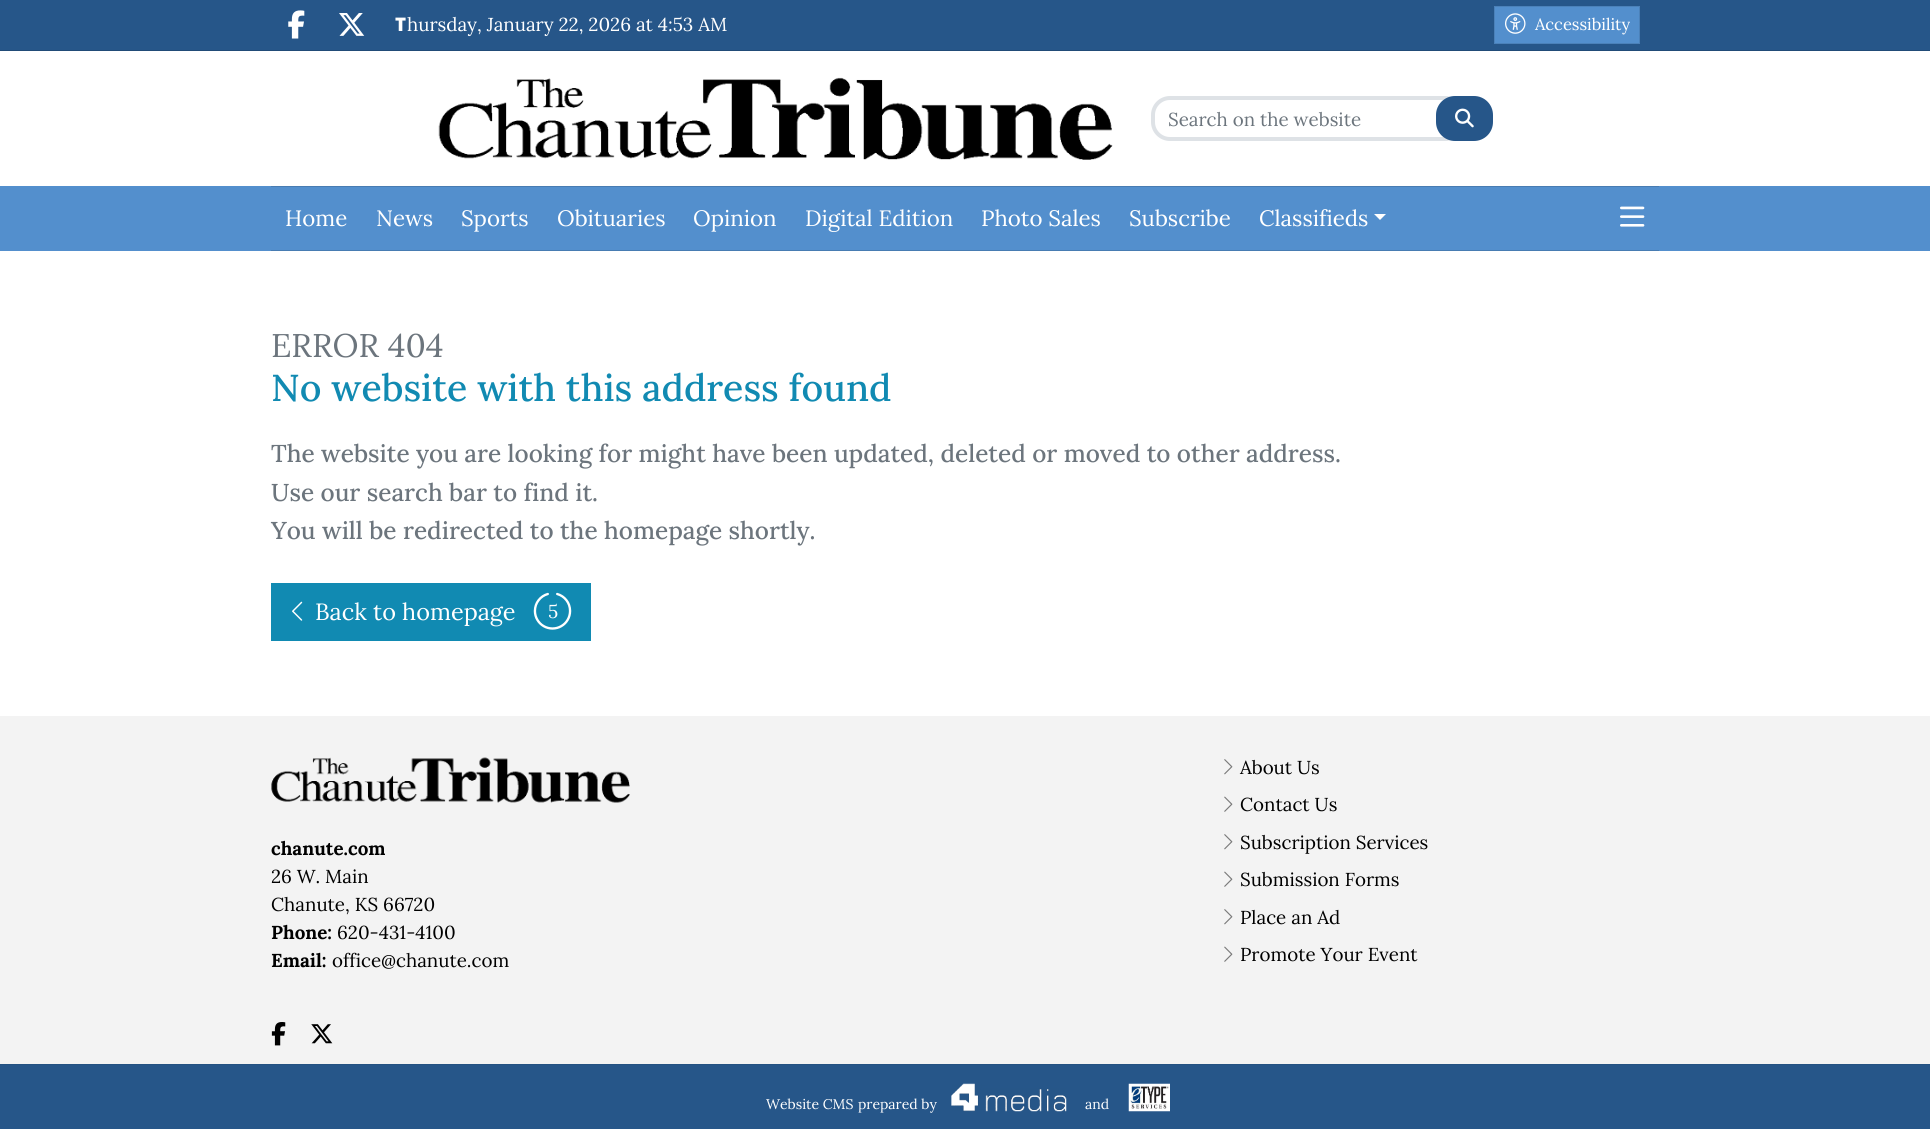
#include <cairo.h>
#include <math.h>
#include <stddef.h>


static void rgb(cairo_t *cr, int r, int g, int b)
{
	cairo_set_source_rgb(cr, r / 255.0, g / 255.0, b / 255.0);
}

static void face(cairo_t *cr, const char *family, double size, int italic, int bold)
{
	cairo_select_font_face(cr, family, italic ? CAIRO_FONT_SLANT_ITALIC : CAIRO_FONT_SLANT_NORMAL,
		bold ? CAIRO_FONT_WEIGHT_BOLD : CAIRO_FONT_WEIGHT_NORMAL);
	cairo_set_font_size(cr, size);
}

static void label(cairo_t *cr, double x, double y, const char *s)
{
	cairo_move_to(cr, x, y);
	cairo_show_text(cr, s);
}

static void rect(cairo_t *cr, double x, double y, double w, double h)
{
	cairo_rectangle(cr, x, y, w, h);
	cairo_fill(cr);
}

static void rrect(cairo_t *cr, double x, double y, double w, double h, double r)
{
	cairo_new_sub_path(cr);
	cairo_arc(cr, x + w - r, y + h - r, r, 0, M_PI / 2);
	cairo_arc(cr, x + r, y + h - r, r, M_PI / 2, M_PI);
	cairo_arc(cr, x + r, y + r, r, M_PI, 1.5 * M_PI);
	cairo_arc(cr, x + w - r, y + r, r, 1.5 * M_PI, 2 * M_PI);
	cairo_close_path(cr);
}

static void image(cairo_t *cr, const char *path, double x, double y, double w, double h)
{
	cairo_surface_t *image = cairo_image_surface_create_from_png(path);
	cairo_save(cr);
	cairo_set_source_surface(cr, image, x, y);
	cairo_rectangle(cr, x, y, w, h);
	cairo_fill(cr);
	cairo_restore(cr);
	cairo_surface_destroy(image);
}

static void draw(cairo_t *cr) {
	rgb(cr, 255, 255, 255);
	cairo_paint(cr);
	rgb(cr, 38, 86, 137);
	rect(cr, 0, 0, 1930, 50);
	rgb(cr, 33, 75, 119);
	rect(cr, 0, 50, 1930, 1);
	image(cr, "image0.png", 288, 10, 17, 29);
	image(cr, "image1.png", 339, 13, 26, 23);
	face(cr, "Noto Sans Black", 18.75, 0, 0);
	rgb(cr, 255, 255, 255);
	label(cr, 395, 31, "T");
	face(cr, "Lora", 18.75, 0, 0);
	label(cr, 407, 31, "hursday, January 22, 2026 at 4:53 AM");
	rgb(cr, 83, 143, 205);
	cairo_rectangle(cr, 1494.5, 6.5, 145, 37);
	cairo_fill_preserve(cr);
	rgb(cr, 75, 129, 185);
	cairo_set_line_width(cr, 1);
	cairo_stroke(cr);
	image(cr, "image2.png", 1505, 13, 21, 21);
	face(cr, "Lora", 16.5, 0, 0);
	rgb(cr, 255, 255, 255);
	label(cr, 1535, 30, "Accessibility");
	image(cr, "image3.png", 438, 77, 675, 83);
	rrect(cr, 1153, 98, 309, 41, 17);
	rgb(cr, 222, 226, 230);
	cairo_set_line_width(cr, 4);
	cairo_stroke(cr);
	face(cr, "Lora", 18.75, 0, 0);
	rgb(cr, 108, 117, 125);
	label(cr, 1168, 126, "Search on the website");
	rgb(cr, 38, 86, 137);
	rrect(cr, 1436, 96, 57, 45, 19);
	cairo_fill(cr);
	image(cr, "image4.png", 1455, 108, 19, 20);
	rgb(cr, 83, 143, 205);
	rect(cr, 0, 186, 1930, 65);
	rgb(cr, 72, 124, 178);
	rect(cr, 271, 186, 1388, 1);
	rect(cr, 271, 250, 1388, 1);
	face(cr, "Lora", 22.25, 0, 0);
	rgb(cr, 255, 255, 255);
	label(cr, 285, 226, "Home");
	label(cr, 376, 226, "News");
	label(cr, 461, 226, "Sports");
	label(cr, 557, 226, "Obituaries");
	label(cr, 693, 226, "Opinion");
	label(cr, 805, 226, "Digital Edition");
	label(cr, 981, 226, "Photo Sales");
	label(cr, 1129, 226, "Subscribe");
	label(cr, 1259, 226, "Classifieds");
	cairo_new_path(cr);
	cairo_move_to(cr, 1374, 214);
	cairo_line_to(cr, 1386, 214);
	cairo_line_to(cr, 1380, 220);
	cairo_close_path(cr);
	cairo_fill(cr);
	image(cr, "image5.png", 1620, 206, 25, 21);
	face(cr, "Lora", 32.75, 0, 0);
	rgb(cr, 108, 117, 125);
	label(cr, 271, 357, "ERROR 404");
	face(cr, "Lora Medium", 37.5, 0, 0);
	rgb(cr, 17, 138, 178);
	label(cr, 271, 401, "No website with this address found");
	face(cr, "Lora Medium", 24.4, 0, 0);
	rgb(cr, 108, 117, 125);
	label(cr, 271, 462, "The website you are looking for might have been updated, deleted or moved to other address.");
	label(cr, 271, 501, "Use our search bar to find it.");
	label(cr, 271, 539, "You will be redirected to the homepage shortly.");
	rgb(cr, 17, 138, 178);
	rect(cr, 271, 583, 320, 58);
	image(cr, "image6.png", 292, 601, 11, 20);
	face(cr, "Lora", 23.5, 0, 0);
	rgb(cr, 255, 255, 255);
	label(cr, 315, 620, "Back to homepage");
	face(cr, "Lora", 18.75, 0, 0);
	label(cr, 548, 618, "5");
	image(cr, "image7.png", 533, 592, 39, 38);
	rgb(cr, 243, 243, 243);
	rect(cr, 0, 716, 1930, 348);
	image(cr, "image8.png", 271, 757, 359, 46);
	face(cr, "Lora", 18.75, 0, 1);
	rgb(cr, 0, 0, 0);
	label(cr, 271, 855, "chanute.com");
	face(cr, "Lora", 18.75, 0, 0);
	label(cr, 271, 883, "26 W. Main");
	label(cr, 271, 911, "Chanute, KS 66720");
	face(cr, "Lora", 18.75, 0, 1);
	label(cr, 271, 939, "Phone:");
	face(cr, "Lora", 18.75, 0, 0);
	label(cr, 337, 939, "620-431-4100");
	face(cr, "Lora", 18.75, 0, 1);
	label(cr, 271, 967, "Email:");
	face(cr, "Lora", 18.75, 0, 0);
	label(cr, 332, 967, "office@chanute.com");
	image(cr, "image9.png", 1224, 759, 9, 16);
	label(cr, 1240, 774, "About Us");
	image(cr, "image10.png", 1224, 796, 9, 16);
	label(cr, 1240, 811, "Contact Us");
	image(cr, "image9.png", 1224, 834, 9, 16);
	label(cr, 1240, 849, "Subscription Services");
	image(cr, "image10.png", 1224, 871, 9, 16);
	label(cr, 1240, 886, "Submission Forms");
	image(cr, "image9.png", 1224, 909, 9, 16);
	label(cr, 1240, 924, "Place an Ad");
	image(cr, "image10.png", 1224, 946, 9, 16);
	label(cr, 1240, 961, "Promote Your Event");
	image(cr, "image11.png", 271, 1022, 15, 24);
	image(cr, "image12.png", 311, 1024, 22, 20);
	rgb(cr, 38, 86, 137);
	rect(cr, 0, 1065, 1930, 64);
	rgb(cr, 36, 82, 130);
	rect(cr, 0, 1064, 1930, 1);
	face(cr, "Lora", 14, 0, 0);
	rgb(cr, 255, 255, 255);
	label(cr, 766, 1109, "Website CMS");
	label(cr, 858, 1109, "prepared by");
	image(cr, "image13.png", 951, 1083, 116, 29);
	label(cr, 1085, 1109, "and");
	image(cr, "image14.png", 1128, 1083, 42, 29);
}

int main(void) {
	cairo_surface_t *surface = cairo_image_surface_create(CAIRO_FORMAT_RGB24, 1930, 1129);
	cairo_t *cr = cairo_create(surface);
	cairo_font_options_t *options = cairo_font_options_create();
	cairo_font_options_set_hint_metrics(options, CAIRO_HINT_METRICS_OFF);
	cairo_font_options_set_hint_style(options, CAIRO_HINT_STYLE_NONE);
	cairo_set_font_options(cr, options);
	cairo_set_miter_limit(cr, 4);
	draw(cr);
	cairo_surface_write_to_png(surface, "render.png");
	cairo_font_options_destroy(options);
	cairo_destroy(cr);
	cairo_surface_destroy(surface);
	return 0;
}
